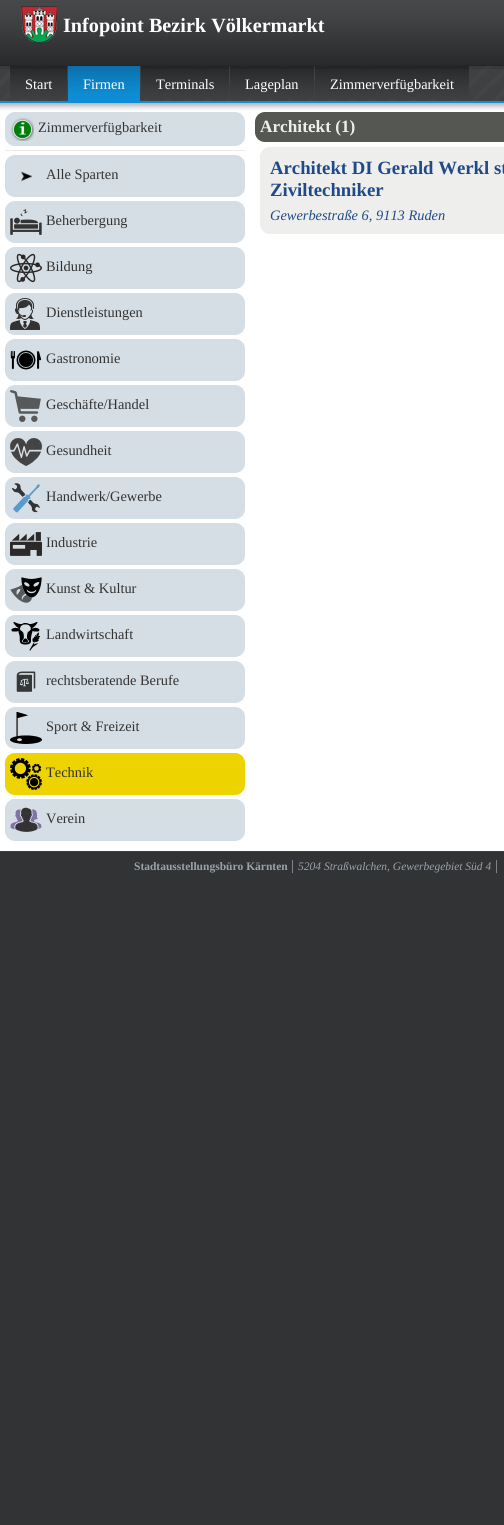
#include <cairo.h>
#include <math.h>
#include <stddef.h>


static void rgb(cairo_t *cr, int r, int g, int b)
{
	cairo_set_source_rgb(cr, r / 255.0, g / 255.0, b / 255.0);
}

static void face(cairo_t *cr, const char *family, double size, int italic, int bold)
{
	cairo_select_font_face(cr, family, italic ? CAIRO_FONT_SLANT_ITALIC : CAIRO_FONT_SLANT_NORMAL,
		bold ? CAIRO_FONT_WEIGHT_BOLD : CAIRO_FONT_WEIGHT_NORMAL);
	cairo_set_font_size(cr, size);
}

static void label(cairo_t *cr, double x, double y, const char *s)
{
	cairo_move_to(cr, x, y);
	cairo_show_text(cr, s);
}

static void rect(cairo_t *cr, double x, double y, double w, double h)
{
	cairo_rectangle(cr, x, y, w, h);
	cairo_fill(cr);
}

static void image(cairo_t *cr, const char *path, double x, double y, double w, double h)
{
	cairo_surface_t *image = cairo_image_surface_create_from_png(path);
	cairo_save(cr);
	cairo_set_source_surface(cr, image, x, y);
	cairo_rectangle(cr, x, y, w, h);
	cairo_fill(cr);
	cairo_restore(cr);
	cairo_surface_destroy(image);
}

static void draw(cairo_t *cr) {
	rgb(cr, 50, 51, 52);
	cairo_paint(cr);
	image(cr, "image0.png", 0, 0, 504, 65);
	image(cr, "image1.png", 21, 6, 36, 36);
	face(cr, "Liberation Serif", 20.2, 0, 1);
	rgb(cr, 255, 255, 255);
	label(cr, 63, 32, "Infopoint Bezirk Völkermarkt");
	image(cr, "image2.png", 0, 65, 504, 36);
	rgb(cr, 14, 142, 215);
	rect(cr, 0, 101, 504, 2);
	image(cr, "image3.png", 10, 66, 57, 33);
	face(cr, "Liberation Serif", 14.4, 0, 0);
	rgb(cr, 255, 255, 255);
	label(cr, 25, 89, "Start");
	image(cr, "image4.png", 68, 66, 72, 35);
	label(cr, 83, 89, "Firmen");
	image(cr, "image5.png", 141, 66, 88, 33);
	label(cr, 156, 89, "Terminals");
	image(cr, "image6.png", 230, 66, 84, 33);
	label(cr, 245, 89, "Lageplan");
	image(cr, "image7.png", 315, 66, 154, 33);
	label(cr, 330, 89, "Zimmerverfügbarkeit");
	rect(cr, 0, 111, 504, 740);
	image(cr, "image8.png", 0, 103, 504, 8);
	rgb(cr, 62, 64, 66);
	rect(cr, 0, 851, 504, 1);
	rgb(cr, 213, 222, 229);
	rect(cr, 5, 112, 240, 34);
	image(cr, "image10.png", 10, 117, 24, 24);
	image(cr, "image9.png", 5, 112, 9, 9);
	rgb(cr, 51, 51, 51);
	label(cr, 38, 132, "Zimmerverfügbarkeit");
	image(cr, "image11.png", 236, 112, 9, 9);
	image(cr, "image12.png", 5, 137, 9, 9);
	image(cr, "image13.png", 236, 137, 9, 9);
	rgb(cr, 235, 235, 235);
	rect(cr, 5, 150, 240, 1);
	rgb(cr, 213, 222, 229);
	rect(cr, 5, 155, 240, 42);
	image(cr, "image14.png", 5, 155, 9, 9);
	image(cr, "image11.png", 236, 155, 9, 9);
	image(cr, "image15.png", 21, 171, 11, 11);
	rgb(cr, 51, 51, 51);
	label(cr, 46, 179, "Alle Sparten");
	image(cr, "image16.png", 5, 188, 9, 9);
	image(cr, "image13.png", 236, 188, 9, 9);
	rgb(cr, 213, 222, 229);
	rect(cr, 5, 201, 240, 42);
	image(cr, "image17.png", 10, 209, 32, 26);
	image(cr, "image14.png", 5, 201, 9, 9);
	image(cr, "image11.png", 236, 201, 9, 9);
	rgb(cr, 51, 51, 51);
	label(cr, 46, 225, "Beherbergung");
	image(cr, "image18.png", 5, 234, 9, 9);
	image(cr, "image13.png", 236, 234, 9, 9);
	rgb(cr, 213, 222, 229);
	rect(cr, 5, 247, 240, 42);
	image(cr, "image19.png", 10, 253, 32, 30);
	image(cr, "image14.png", 5, 247, 9, 9);
	image(cr, "image11.png", 236, 247, 9, 9);
	rgb(cr, 51, 51, 51);
	label(cr, 46, 271, "Bildung");
	image(cr, "image16.png", 5, 280, 9, 9);
	image(cr, "image13.png", 236, 280, 9, 9);
	rgb(cr, 213, 222, 229);
	rect(cr, 5, 293, 240, 42);
	image(cr, "image20.png", 10, 298, 30, 32);
	image(cr, "image14.png", 5, 293, 9, 9);
	rgb(cr, 51, 51, 51);
	label(cr, 46, 317, "Dienstleistungen");
	image(cr, "image11.png", 236, 293, 9, 9);
	image(cr, "image21.png", 5, 326, 9, 9);
	image(cr, "image13.png", 236, 326, 9, 9);
	rgb(cr, 213, 222, 229);
	rect(cr, 5, 339, 240, 42);
	image(cr, "image14.png", 5, 339, 9, 9);
	image(cr, "image11.png", 236, 339, 9, 9);
	image(cr, "image22.png", 10, 350, 32, 20);
	rgb(cr, 51, 51, 51);
	label(cr, 46, 363, "Gastronomie");
	image(cr, "image16.png", 5, 372, 9, 9);
	image(cr, "image13.png", 236, 372, 9, 9);
	rgb(cr, 213, 222, 229);
	rect(cr, 5, 385, 240, 42);
	image(cr, "image24.png", 10, 390, 31, 32);
	image(cr, "image23.png", 5, 385, 9, 9);
	rgb(cr, 51, 51, 51);
	label(cr, 46, 409, "Geschäfte/Handel");
	image(cr, "image11.png", 236, 385, 9, 9);
	image(cr, "image16.png", 5, 418, 9, 9);
	image(cr, "image13.png", 236, 418, 9, 9);
	rgb(cr, 213, 222, 229);
	rect(cr, 5, 431, 240, 42);
	image(cr, "image26.png", 10, 438, 32, 28);
	image(cr, "image25.png", 5, 431, 9, 9);
	image(cr, "image11.png", 236, 431, 9, 9);
	rgb(cr, 51, 51, 51);
	label(cr, 46, 455, "Gesundheit");
	image(cr, "image16.png", 5, 464, 9, 9);
	image(cr, "image13.png", 236, 464, 9, 9);
	rgb(cr, 213, 222, 229);
	rect(cr, 5, 477, 240, 42);
	image(cr, "image27.png", 12, 483, 28, 30);
	image(cr, "image14.png", 5, 477, 9, 9);
	image(cr, "image11.png", 236, 477, 9, 9);
	rgb(cr, 51, 51, 51);
	label(cr, 46, 501, "Handwerk/Gewerbe");
	image(cr, "image28.png", 5, 510, 9, 9);
	image(cr, "image13.png", 236, 510, 9, 9);
	rgb(cr, 213, 222, 229);
	rect(cr, 5, 523, 240, 42);
	image(cr, "image14.png", 5, 523, 9, 9);
	image(cr, "image11.png", 236, 523, 9, 9);
	image(cr, "image29.png", 10, 532, 32, 24);
	rgb(cr, 51, 51, 51);
	label(cr, 46, 547, "Industrie");
	image(cr, "image16.png", 5, 556, 9, 9);
	image(cr, "image13.png", 236, 556, 9, 9);
	rgb(cr, 213, 222, 229);
	rect(cr, 5, 569, 240, 42);
	image(cr, "image30.png", 10, 577, 32, 26);
	image(cr, "image14.png", 5, 569, 9, 9);
	image(cr, "image11.png", 236, 569, 9, 9);
	rgb(cr, 51, 51, 51);
	label(cr, 46, 593, "Kunst & Kultur");
	image(cr, "image16.png", 5, 602, 9, 9);
	image(cr, "image13.png", 236, 602, 9, 9);
	rgb(cr, 213, 222, 229);
	rect(cr, 5, 615, 240, 42);
	image(cr, "image32.png", 11, 622, 29, 29);
	image(cr, "image31.png", 5, 615, 9, 9);
	image(cr, "image11.png", 236, 615, 9, 9);
	rgb(cr, 51, 51, 51);
	label(cr, 46, 639, "Landwirtschaft");
	image(cr, "image16.png", 5, 648, 9, 9);
	image(cr, "image13.png", 236, 648, 9, 9);
	rgb(cr, 213, 222, 229);
	rect(cr, 5, 661, 240, 42);
	image(cr, "image14.png", 5, 661, 9, 9);
	image(cr, "image11.png", 236, 661, 9, 9);
	image(cr, "image33.png", 16, 671, 20, 21);
	rgb(cr, 51, 51, 51);
	label(cr, 46, 685, "rechtsberatende Berufe");
	image(cr, "image16.png", 5, 694, 9, 9);
	image(cr, "image13.png", 236, 694, 9, 9);
	rgb(cr, 213, 222, 229);
	rect(cr, 5, 707, 240, 42);
	image(cr, "image34.png", 10, 712, 32, 32);
	image(cr, "image14.png", 5, 707, 9, 9);
	rgb(cr, 51, 51, 51);
	label(cr, 46, 731, "Sport & Freizeit");
	image(cr, "image11.png", 236, 707, 9, 9);
	image(cr, "image35.png", 5, 740, 9, 9);
	image(cr, "image13.png", 236, 740, 9, 9);
	rgb(cr, 237, 212, 0);
	rect(cr, 5, 753, 240, 42);
	image(cr, "image37.png", 10, 758, 32, 32);
	image(cr, "image36.png", 5, 753, 9, 9);
	rgb(cr, 51, 51, 51);
	label(cr, 46, 777, "Technik");
	image(cr, "image38.png", 236, 753, 9, 9);
	image(cr, "image39.png", 5, 786, 9, 9);
	image(cr, "image40.png", 236, 786, 9, 9);
	rgb(cr, 213, 222, 229);
	rect(cr, 5, 799, 240, 42);
	image(cr, "image41.png", 10, 807, 32, 25);
	image(cr, "image14.png", 5, 799, 9, 9);
	image(cr, "image11.png", 236, 799, 9, 9);
	rgb(cr, 51, 51, 51);
	label(cr, 46, 823, "Verein");
	image(cr, "image16.png", 5, 832, 9, 9);
	image(cr, "image13.png", 236, 832, 9, 9);
	rgb(cr, 85, 87, 83);
	rect(cr, 255, 112, 249, 30);
	face(cr, "Liberation Serif", 17.25, 0, 1);
	rgb(cr, 238, 238, 236);
	label(cr, 260, 132, "Architekt (1)");
	image(cr, "image42.png", 255, 112, 9, 9);
	image(cr, "image43.png", 255, 133, 9, 9);
	rect(cr, 260, 147, 244, 87);
	image(cr, "image44.png", 260, 147, 8, 8);
	face(cr, "Liberation Serif", 18.75, 0, 1);
	rgb(cr, 32, 74, 135);
	label(cr, 270, 174, "Architekt DI Gerald Werkl st");
	label(cr, 270, 196, "Ziviltechniker");
	face(cr, "Liberation Serif", 14.4, 1, 0);
	label(cr, 270, 220, "Gewerbestraße 6, 9113 Ruden");
	image(cr, "image45.png", 260, 226, 8, 8);
	face(cr, "Liberation Serif", 11.5, 0, 1);
	rgb(cr, 154, 162, 170);
	label(cr, 134, 870, "Stadtausstellungsbüro Kärnten");
	face(cr, "Liberation Serif", 14.4, 0, 0);
	label(cr, 291, 870, "|");
	face(cr, "Liberation Serif", 11.5, 1, 0);
	label(cr, 298, 870, "5204 Straßwalchen, Gewerbegebiet Süd 4");
	face(cr, "Liberation Serif", 14.4, 0, 0);
	label(cr, 495, 870, "|");
}

int main(void) {
	cairo_surface_t *surface = cairo_image_surface_create(CAIRO_FORMAT_RGB24, 504, 1525);
	cairo_t *cr = cairo_create(surface);
	cairo_font_options_t *options = cairo_font_options_create();
	cairo_font_options_set_hint_metrics(options, CAIRO_HINT_METRICS_OFF);
	cairo_font_options_set_hint_style(options, CAIRO_HINT_STYLE_NONE);
	cairo_set_font_options(cr, options);
	cairo_set_miter_limit(cr, 4);
	draw(cr);
	cairo_surface_write_to_png(surface, "render.png");
	cairo_font_options_destroy(options);
	cairo_destroy(cr);
	cairo_surface_destroy(surface);
	return 0;
}
